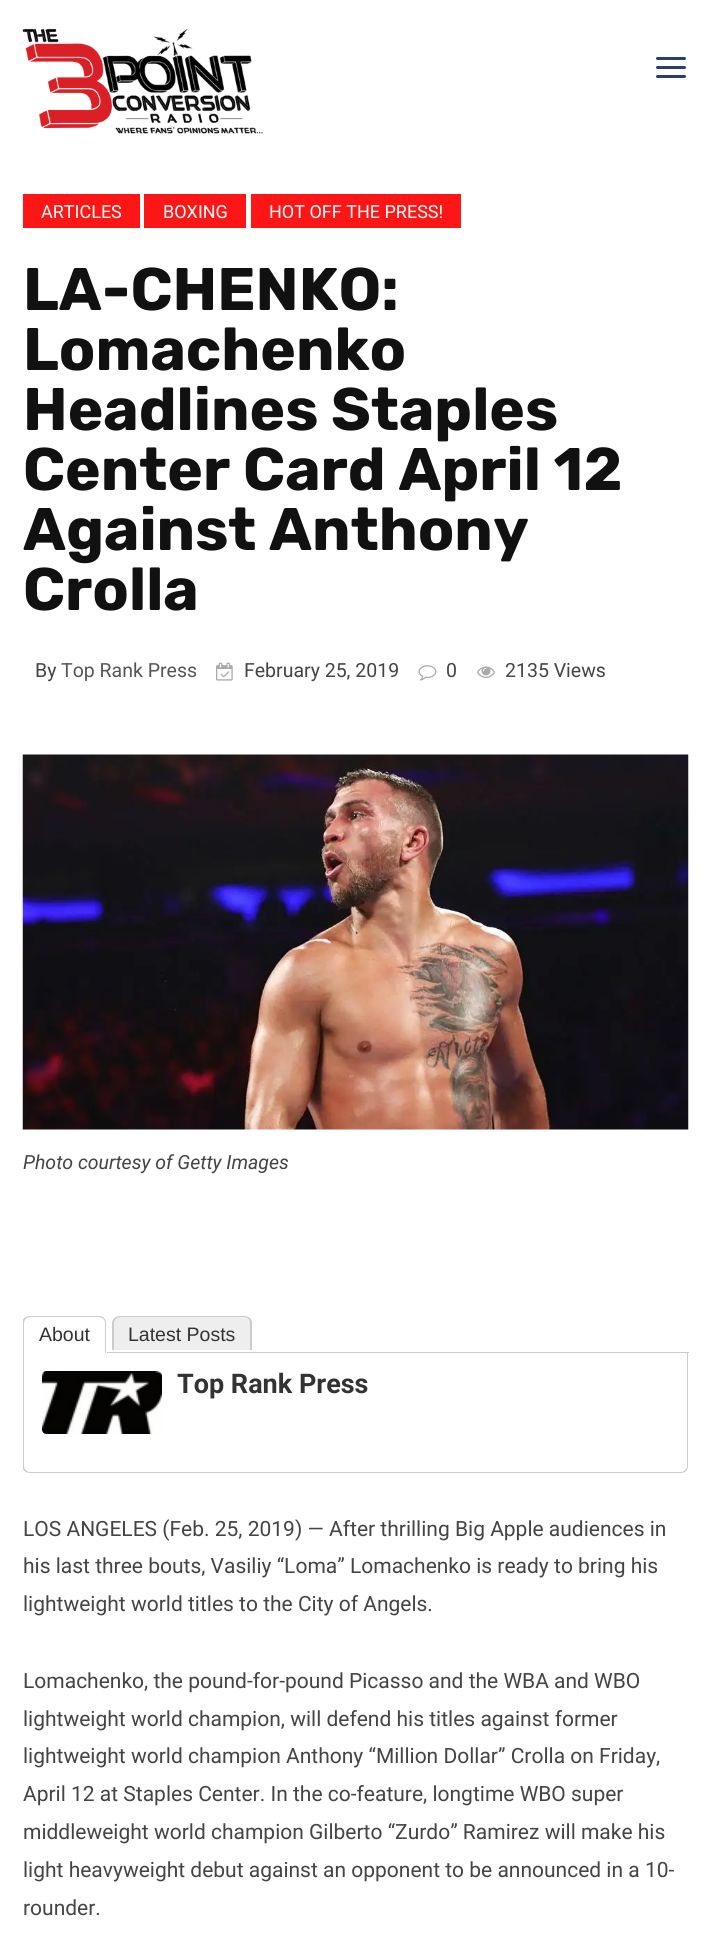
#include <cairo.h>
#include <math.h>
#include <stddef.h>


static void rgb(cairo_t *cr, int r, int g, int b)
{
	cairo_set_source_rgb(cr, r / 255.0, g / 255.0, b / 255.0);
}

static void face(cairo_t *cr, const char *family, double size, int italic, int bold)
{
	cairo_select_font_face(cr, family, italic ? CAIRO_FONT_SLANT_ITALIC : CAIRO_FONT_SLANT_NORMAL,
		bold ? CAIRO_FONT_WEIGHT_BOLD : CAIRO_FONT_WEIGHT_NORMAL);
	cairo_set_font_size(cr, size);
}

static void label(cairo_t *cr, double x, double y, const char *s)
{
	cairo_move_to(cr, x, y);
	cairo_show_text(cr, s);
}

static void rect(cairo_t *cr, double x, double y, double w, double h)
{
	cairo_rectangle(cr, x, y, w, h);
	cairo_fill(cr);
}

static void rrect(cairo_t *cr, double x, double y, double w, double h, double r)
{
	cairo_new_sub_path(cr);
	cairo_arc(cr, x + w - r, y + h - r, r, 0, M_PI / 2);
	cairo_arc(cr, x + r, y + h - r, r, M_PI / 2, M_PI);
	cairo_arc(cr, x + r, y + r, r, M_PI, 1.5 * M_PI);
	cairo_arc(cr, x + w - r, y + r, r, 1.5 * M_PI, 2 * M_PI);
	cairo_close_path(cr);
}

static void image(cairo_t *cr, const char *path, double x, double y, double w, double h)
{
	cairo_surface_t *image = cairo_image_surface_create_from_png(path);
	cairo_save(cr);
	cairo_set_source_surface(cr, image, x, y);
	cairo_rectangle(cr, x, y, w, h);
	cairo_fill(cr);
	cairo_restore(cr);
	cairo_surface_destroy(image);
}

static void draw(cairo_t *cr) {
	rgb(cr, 255, 255, 255);
	cairo_paint(cr);
	image(cr, "image0.png", 22, 28, 241, 106);
	rgb(cr, 40, 64, 109);
	rrect(cr, 656, 57, 30, 3, 1.5);
	cairo_fill(cr);
	rrect(cr, 656, 66, 30, 3, 1.5);
	cairo_fill(cr);
	rrect(cr, 656, 75, 30, 3, 1.5);
	cairo_fill(cr);
	rgb(cr, 252, 22, 22);
	rect(cr, 23, 194, 117, 34);
	face(cr, "Roboto", 18, 0, 0);
	rgb(cr, 255, 255, 255);
	label(cr, 41, 218, "ARTICLES");
	rgb(cr, 252, 22, 22);
	rect(cr, 144, 194, 102, 34);
	rgb(cr, 255, 255, 255);
	label(cr, 163, 218, "BOXING");
	rgb(cr, 252, 22, 22);
	rect(cr, 251, 194, 210, 34);
	rgb(cr, 255, 255, 255);
	label(cr, 269, 218, "HOT OFF THE PRESS!");
	face(cr, "Rubik", 60, 0, 1);
	rgb(cr, 17, 17, 17);
	label(cr, 23, 310, "LA-CHENKO:");
	label(cr, 23, 370, "Lomachenko");
	label(cr, 23, 430, "Headlines Staples");
	label(cr, 23, 490, "Center Card April 12");
	label(cr, 23, 550, "Against Anthony");
	label(cr, 23, 610, "Crolla");
	face(cr, "Roboto", 19.5, 0, 0);
	rgb(cr, 68, 68, 68);
	label(cr, 35, 677, "By");
	rgb(cr, 85, 85, 85);
	label(cr, 61, 677, "Top Rank Press");
	image(cr, "image1.png", 216, 662, 17, 19);
	rgb(cr, 68, 68, 68);
	label(cr, 244, 677, "February 25, 2019");
	image(cr, "image2.png", 418, 665, 19, 16);
	label(cr, 446, 677, "0");
	image(cr, "image3.png", 477, 666, 18, 12);
	label(cr, 505, 677, "2135 Views");
	image(cr, "image4.png", 22, 754, 667, 376);
	face(cr, "Roboto", 19.5, 1, 0);
	label(cr, 23, 1169, "Photo courtesy of Getty Images");
	rgb(cr, 204, 204, 204);
	rect(cr, 107, 1352, 582, 1);
	cairo_save(cr);
	cairo_rectangle(cr, 23, 1257, 666, 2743);
	cairo_clip(cr);
	cairo_set_fill_rule(cr, CAIRO_FILL_RULE_EVEN_ODD);
	cairo_new_path(cr);
	cairo_move_to(cr, 30, 1316);
	cairo_line_to(cr, 99, 1316);
	cairo_curve_to(cr, 103, 1316, 106, 1319, 106, 1323);
	cairo_line_to(cr, 106, 1353);
	cairo_line_to(cr, 22, 1353);
	cairo_line_to(cr, 22, 1323);
	cairo_curve_to(cr, 22, 1319, 26, 1316, 30, 1316);
	cairo_close_path(cr);
	cairo_move_to(cr, 30, 1317);
	cairo_line_to(cr, 99, 1317);
	cairo_curve_to(cr, 102, 1317, 105, 1320, 105, 1323);
	cairo_line_to(cr, 105, 1353);
	cairo_line_to(cr, 24, 1353);
	cairo_line_to(cr, 24, 1323);
	cairo_curve_to(cr, 24, 1320, 27, 1317, 30, 1317);
	cairo_close_path(cr);
	cairo_fill(cr);
	cairo_restore(cr);
	face(cr, "Liberation Sans", 19.5, 0, 0);
	rgb(cr, 51, 51, 51);
	label(cr, 39, 1341, "About");
	rgb(cr, 238, 238, 238);
	cairo_new_path(cr);
	cairo_move_to(cr, 121, 1316);
	cairo_line_to(cr, 244, 1316);
	cairo_curve_to(cr, 248.5, 1316, 252, 1319.5, 252, 1324);
	cairo_line_to(cr, 252, 1350);
	cairo_line_to(cr, 113, 1350);
	cairo_line_to(cr, 113, 1324);
	cairo_curve_to(cr, 113, 1319.5, 116.5, 1316, 121, 1316);
	cairo_close_path(cr);
	cairo_fill(cr);
	rgb(cr, 204, 204, 204);
	cairo_set_fill_rule(cr, CAIRO_FILL_RULE_EVEN_ODD);
	cairo_new_path(cr);
	cairo_move_to(cr, 120, 1316);
	cairo_line_to(cr, 244, 1316);
	cairo_curve_to(cr, 249, 1316, 252, 1319, 252, 1323);
	cairo_line_to(cr, 252, 1350);
	cairo_line_to(cr, 112, 1350);
	cairo_line_to(cr, 112, 1323);
	cairo_curve_to(cr, 112, 1319, 116, 1316, 120, 1316);
	cairo_close_path(cr);
	cairo_move_to(cr, 120, 1317);
	cairo_line_to(cr, 244, 1317);
	cairo_curve_to(cr, 248, 1317, 250, 1320, 250, 1323);
	cairo_line_to(cr, 250, 1350);
	cairo_line_to(cr, 114, 1350);
	cairo_line_to(cr, 114, 1323);
	cairo_curve_to(cr, 114, 1320, 117, 1317, 120, 1317);
	cairo_close_path(cr);
	cairo_fill(cr);
	rgb(cr, 51, 51, 51);
	label(cr, 128, 1341, "Latest Posts");
	cairo_save(cr);
	cairo_set_fill_rule(cr, CAIRO_FILL_RULE_WINDING);
	cairo_rectangle(cr, 23, 1257, 666, 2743);
	cairo_clip(cr);
	rgb(cr, 204, 204, 204);
	cairo_set_fill_rule(cr, CAIRO_FILL_RULE_EVEN_ODD);
	cairo_new_path(cr);
	cairo_move_to(cr, 22, 1353);
	cairo_line_to(cr, 688, 1353);
	cairo_line_to(cr, 688, 1466);
	cairo_curve_to(cr, 688, 1470, 685, 1473, 681, 1473);
	cairo_line_to(cr, 30, 1473);
	cairo_curve_to(cr, 26, 1473, 22, 1470, 22, 1466);
	cairo_close_path(cr);
	cairo_move_to(cr, 24, 1353);
	cairo_line_to(cr, 687, 1353);
	cairo_line_to(cr, 687, 1466);
	cairo_curve_to(cr, 687, 1469, 684, 1472, 681, 1472);
	cairo_line_to(cr, 30, 1472);
	cairo_curve_to(cr, 27, 1472, 24, 1469, 24, 1466);
	cairo_close_path(cr);
	cairo_fill(cr);
	cairo_restore(cr);
	image(cr, "image5.png", 42, 1371, 120, 63);
	face(cr, "Roboto", 27, 0, 1);
	label(cr, 177, 1393, "Top Rank Press");
	face(cr, "Roboto", 21, 0, 0);
	rgb(cr, 68, 68, 68);
	label(cr, 23, 1536, "LOS ANGELES (Feb. 25, 2019) — After thrilling Big Apple audiences in");
	label(cr, 23, 1573, "his last three bouts, Vasiliy “Loma” Lomachenko is ready to bring his");
	label(cr, 23, 1611, "lightweight world titles to the City of Angels.");
	label(cr, 23, 1688, "Lomachenko, the pound-for-pound Picasso and the WBA and WBO");
	label(cr, 23, 1726, "lightweight world champion, will defend his titles against former");
	label(cr, 23, 1763, "lightweight world champion Anthony “Million Dollar” Crolla on Friday,");
	label(cr, 23, 1801, "April 12 at Staples Center. In the co-feature, longtime WBO super");
	label(cr, 23, 1839, "middleweight world champion Gilberto “Zurdo” Ramirez will make his");
	label(cr, 23, 1877, "light heavyweight debut against an opponent to be announced in a 10-");
	label(cr, 23, 1915, "rounder.");
}

int main(void) {
	cairo_surface_t *surface = cairo_image_surface_create(CAIRO_FORMAT_RGB24, 710, 1941);
	cairo_t *cr = cairo_create(surface);
	cairo_font_options_t *options = cairo_font_options_create();
	cairo_font_options_set_hint_metrics(options, CAIRO_HINT_METRICS_OFF);
	cairo_font_options_set_hint_style(options, CAIRO_HINT_STYLE_NONE);
	cairo_set_font_options(cr, options);
	cairo_set_miter_limit(cr, 4);
	draw(cr);
	cairo_surface_write_to_png(surface, "render.png");
	cairo_font_options_destroy(options);
	cairo_destroy(cr);
	cairo_surface_destroy(surface);
	return 0;
}
